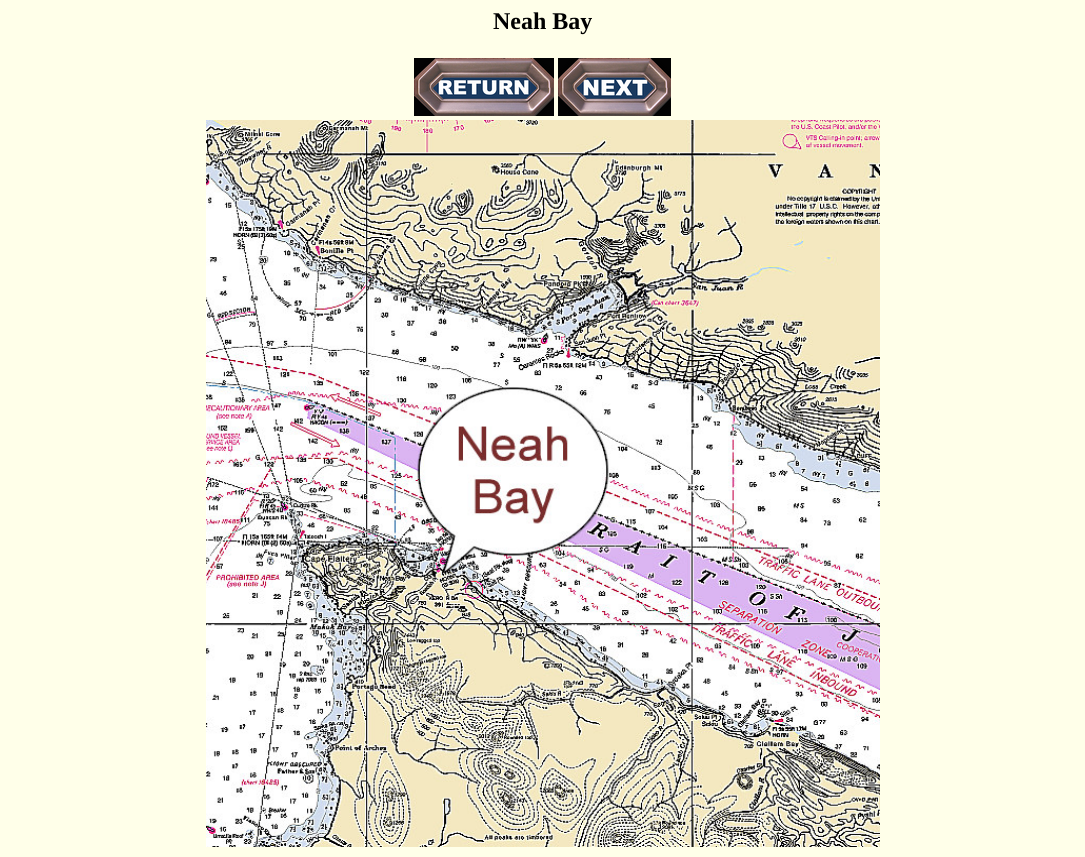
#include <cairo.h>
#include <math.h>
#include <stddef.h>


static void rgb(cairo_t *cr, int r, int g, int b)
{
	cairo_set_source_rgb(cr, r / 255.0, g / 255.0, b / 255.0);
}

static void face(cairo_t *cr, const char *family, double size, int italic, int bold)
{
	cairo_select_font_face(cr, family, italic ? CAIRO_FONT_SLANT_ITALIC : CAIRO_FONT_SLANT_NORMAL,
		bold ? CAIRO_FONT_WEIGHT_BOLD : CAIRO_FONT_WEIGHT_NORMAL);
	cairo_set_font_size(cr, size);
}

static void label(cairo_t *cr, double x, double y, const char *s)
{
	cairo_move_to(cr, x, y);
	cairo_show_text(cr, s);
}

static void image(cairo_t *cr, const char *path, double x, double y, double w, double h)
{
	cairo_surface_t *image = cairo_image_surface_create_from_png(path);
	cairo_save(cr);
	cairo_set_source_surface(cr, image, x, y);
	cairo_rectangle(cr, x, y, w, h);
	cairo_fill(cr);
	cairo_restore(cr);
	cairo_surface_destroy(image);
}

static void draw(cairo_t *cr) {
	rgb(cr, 255, 255, 233);
	cairo_paint(cr);
	face(cr, "Liberation Serif", 24, 0, 1);
	rgb(cr, 0, 0, 0);
	label(cr, 493, 29, "Neah Bay");
	image(cr, "image0.png", 414, 58, 140, 58);
	image(cr, "image1.png", 558, 58, 113, 58);
	image(cr, "image2.png", 206, 120, 674, 727);
}

int main(void) {
	cairo_surface_t *surface = cairo_image_surface_create(CAIRO_FORMAT_RGB24, 1085, 857);
	cairo_t *cr = cairo_create(surface);
	cairo_font_options_t *options = cairo_font_options_create();
	cairo_font_options_set_hint_metrics(options, CAIRO_HINT_METRICS_OFF);
	cairo_font_options_set_hint_style(options, CAIRO_HINT_STYLE_NONE);
	cairo_set_font_options(cr, options);
	cairo_set_miter_limit(cr, 4);
	draw(cr);
	cairo_surface_write_to_png(surface, "render.png");
	cairo_font_options_destroy(options);
	cairo_destroy(cr);
	cairo_surface_destroy(surface);
	return 0;
}
